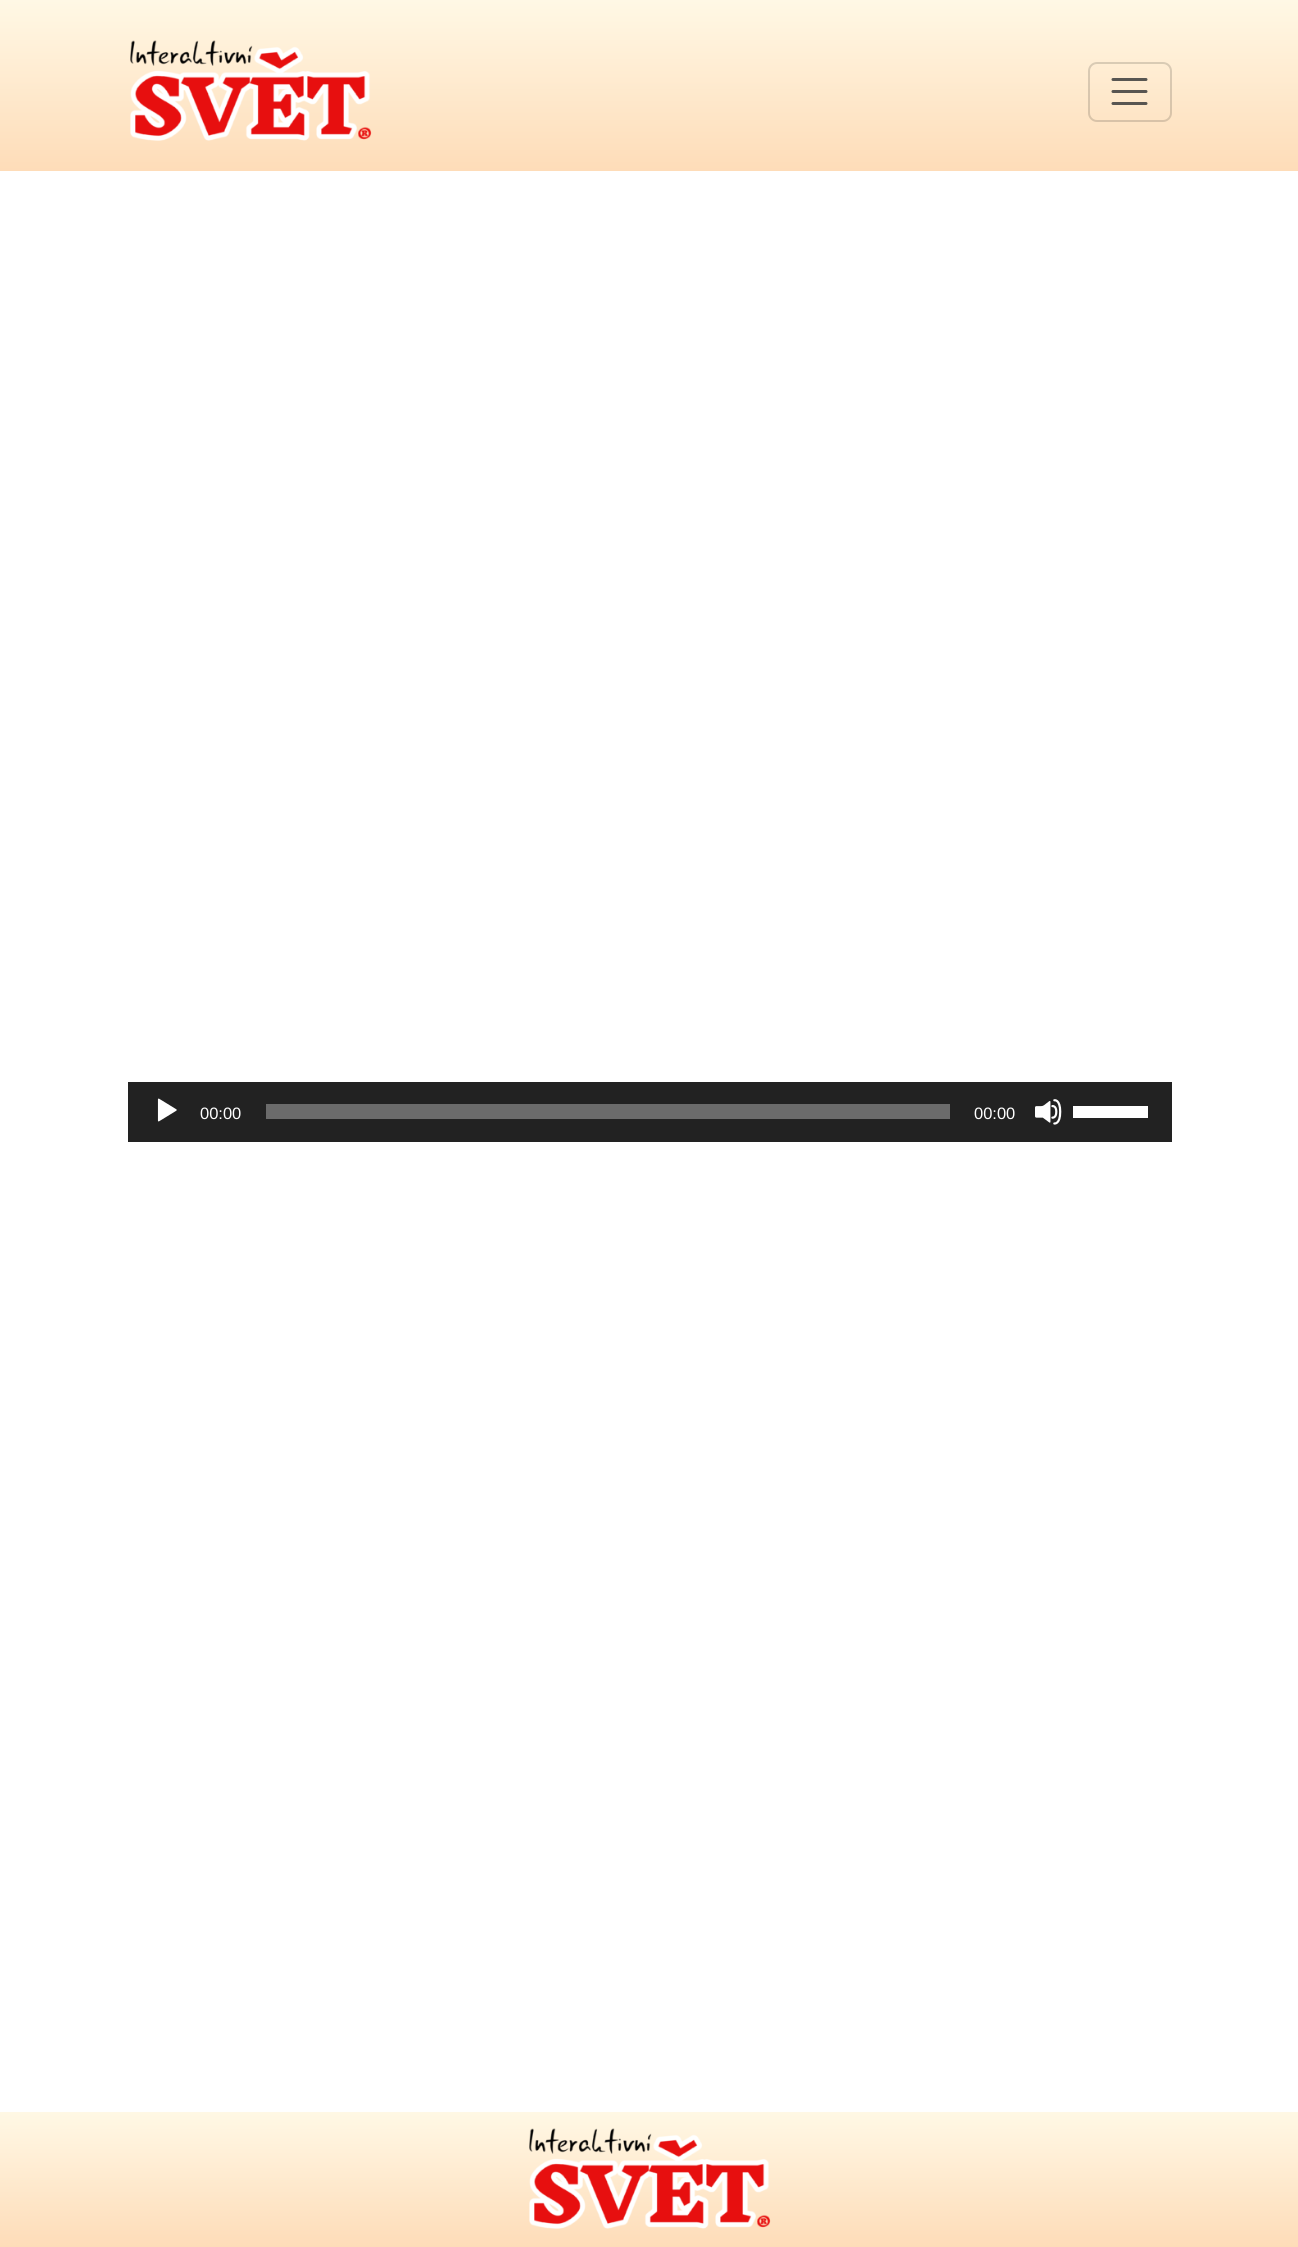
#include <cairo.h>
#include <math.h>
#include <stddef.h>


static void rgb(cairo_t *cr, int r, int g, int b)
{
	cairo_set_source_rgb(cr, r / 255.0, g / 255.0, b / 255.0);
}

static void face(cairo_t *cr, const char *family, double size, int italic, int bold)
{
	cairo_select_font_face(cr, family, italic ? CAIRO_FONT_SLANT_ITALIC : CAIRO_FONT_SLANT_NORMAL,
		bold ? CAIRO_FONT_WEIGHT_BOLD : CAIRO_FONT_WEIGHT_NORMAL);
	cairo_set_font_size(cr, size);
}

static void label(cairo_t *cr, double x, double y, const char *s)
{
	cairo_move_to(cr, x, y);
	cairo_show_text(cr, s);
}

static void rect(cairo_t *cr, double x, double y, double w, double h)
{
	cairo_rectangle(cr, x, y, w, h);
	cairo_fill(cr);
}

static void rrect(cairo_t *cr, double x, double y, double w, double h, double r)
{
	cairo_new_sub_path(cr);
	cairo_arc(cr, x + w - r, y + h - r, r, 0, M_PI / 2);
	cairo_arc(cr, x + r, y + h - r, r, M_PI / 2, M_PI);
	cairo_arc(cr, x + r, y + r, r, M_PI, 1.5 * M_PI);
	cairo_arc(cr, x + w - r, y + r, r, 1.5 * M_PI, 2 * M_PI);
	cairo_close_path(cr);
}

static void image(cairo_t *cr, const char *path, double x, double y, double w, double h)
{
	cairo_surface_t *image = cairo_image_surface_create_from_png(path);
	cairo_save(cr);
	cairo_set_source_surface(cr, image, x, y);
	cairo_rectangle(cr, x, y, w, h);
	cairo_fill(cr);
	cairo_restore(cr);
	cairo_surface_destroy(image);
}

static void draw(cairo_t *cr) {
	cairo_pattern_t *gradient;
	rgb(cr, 255, 255, 255);
	cairo_paint(cr);
	gradient = cairo_pattern_create_linear(650, 0, 650, 171);
	cairo_pattern_add_color_stop_rgba(gradient, 0, 1, 0.973, 0.898, 1);
	cairo_pattern_add_color_stop_rgba(gradient, 1, 0.996, 0.863, 0.722, 1);
	cairo_set_source(cr, gradient);
	cairo_pattern_destroy(gradient);
	rect(cr, 0, 0, 1298, 171);
	image(cr, "image0.png", 130, 40, 242, 101);
	rrect(cr, 1089, 63, 82, 58, 8);
	cairo_set_source_rgba(cr, 0, 0, 0, 0.15);
	cairo_stroke(cr);
	cairo_new_path(cr);
	cairo_move_to(cr, 1113, 79.5);
	cairo_line_to(cr, 1146, 79.5);
	cairo_move_to(cr, 1113, 91.5);
	cairo_line_to(cr, 1146, 91.5);
	cairo_move_to(cr, 1113, 103.5);
	cairo_line_to(cr, 1146, 103.5);
	cairo_set_source_rgba(cr, 0.129, 0.145, 0.161, 0.75);
	cairo_set_line_width(cr, 3);
	cairo_set_line_cap(cr, CAIRO_LINE_CAP_ROUND);
	cairo_stroke(cr);
	rgb(cr, 34, 34, 34);
	rect(cr, 128, 1082, 1044, 60);
	image(cr, "image1.png", 157, 1098, 20, 24);
	face(cr, "Liberation Sans", 16.5, 0, 0);
	rgb(cr, 255, 255, 255);
	label(cr, 200, 1119, "00:00");
	rgb(cr, 107, 107, 107);
	rect(cr, 266, 1104, 684, 15);
	rgb(cr, 255, 255, 255);
	label(cr, 974, 1119, "00:00");
	image(cr, "image2.png", 1035, 1099, 27, 26);
	rect(cr, 1073, 1106, 75, 12);
	gradient = cairo_pattern_create_linear(650, 2112, 650, 2247);
	cairo_pattern_add_color_stop_rgba(gradient, 0, 1, 0.973, 0.898, 1);
	cairo_pattern_add_color_stop_rgba(gradient, 1, 0.996, 0.863, 0.722, 1);
	cairo_set_source(cr, gradient);
	cairo_pattern_destroy(gradient);
	rect(cr, 0, 2112, 1298, 135);
	image(cr, "image3.png", 529, 2128, 242, 101);
}

int main(void) {
	cairo_surface_t *surface = cairo_image_surface_create(CAIRO_FORMAT_RGB24, 1298, 2247);
	cairo_t *cr = cairo_create(surface);
	cairo_font_options_t *options = cairo_font_options_create();
	cairo_font_options_set_hint_metrics(options, CAIRO_HINT_METRICS_OFF);
	cairo_font_options_set_hint_style(options, CAIRO_HINT_STYLE_NONE);
	cairo_set_font_options(cr, options);
	cairo_set_miter_limit(cr, 4);
	draw(cr);
	cairo_surface_write_to_png(surface, "render.png");
	cairo_font_options_destroy(options);
	cairo_destroy(cr);
	cairo_surface_destroy(surface);
	return 0;
}
